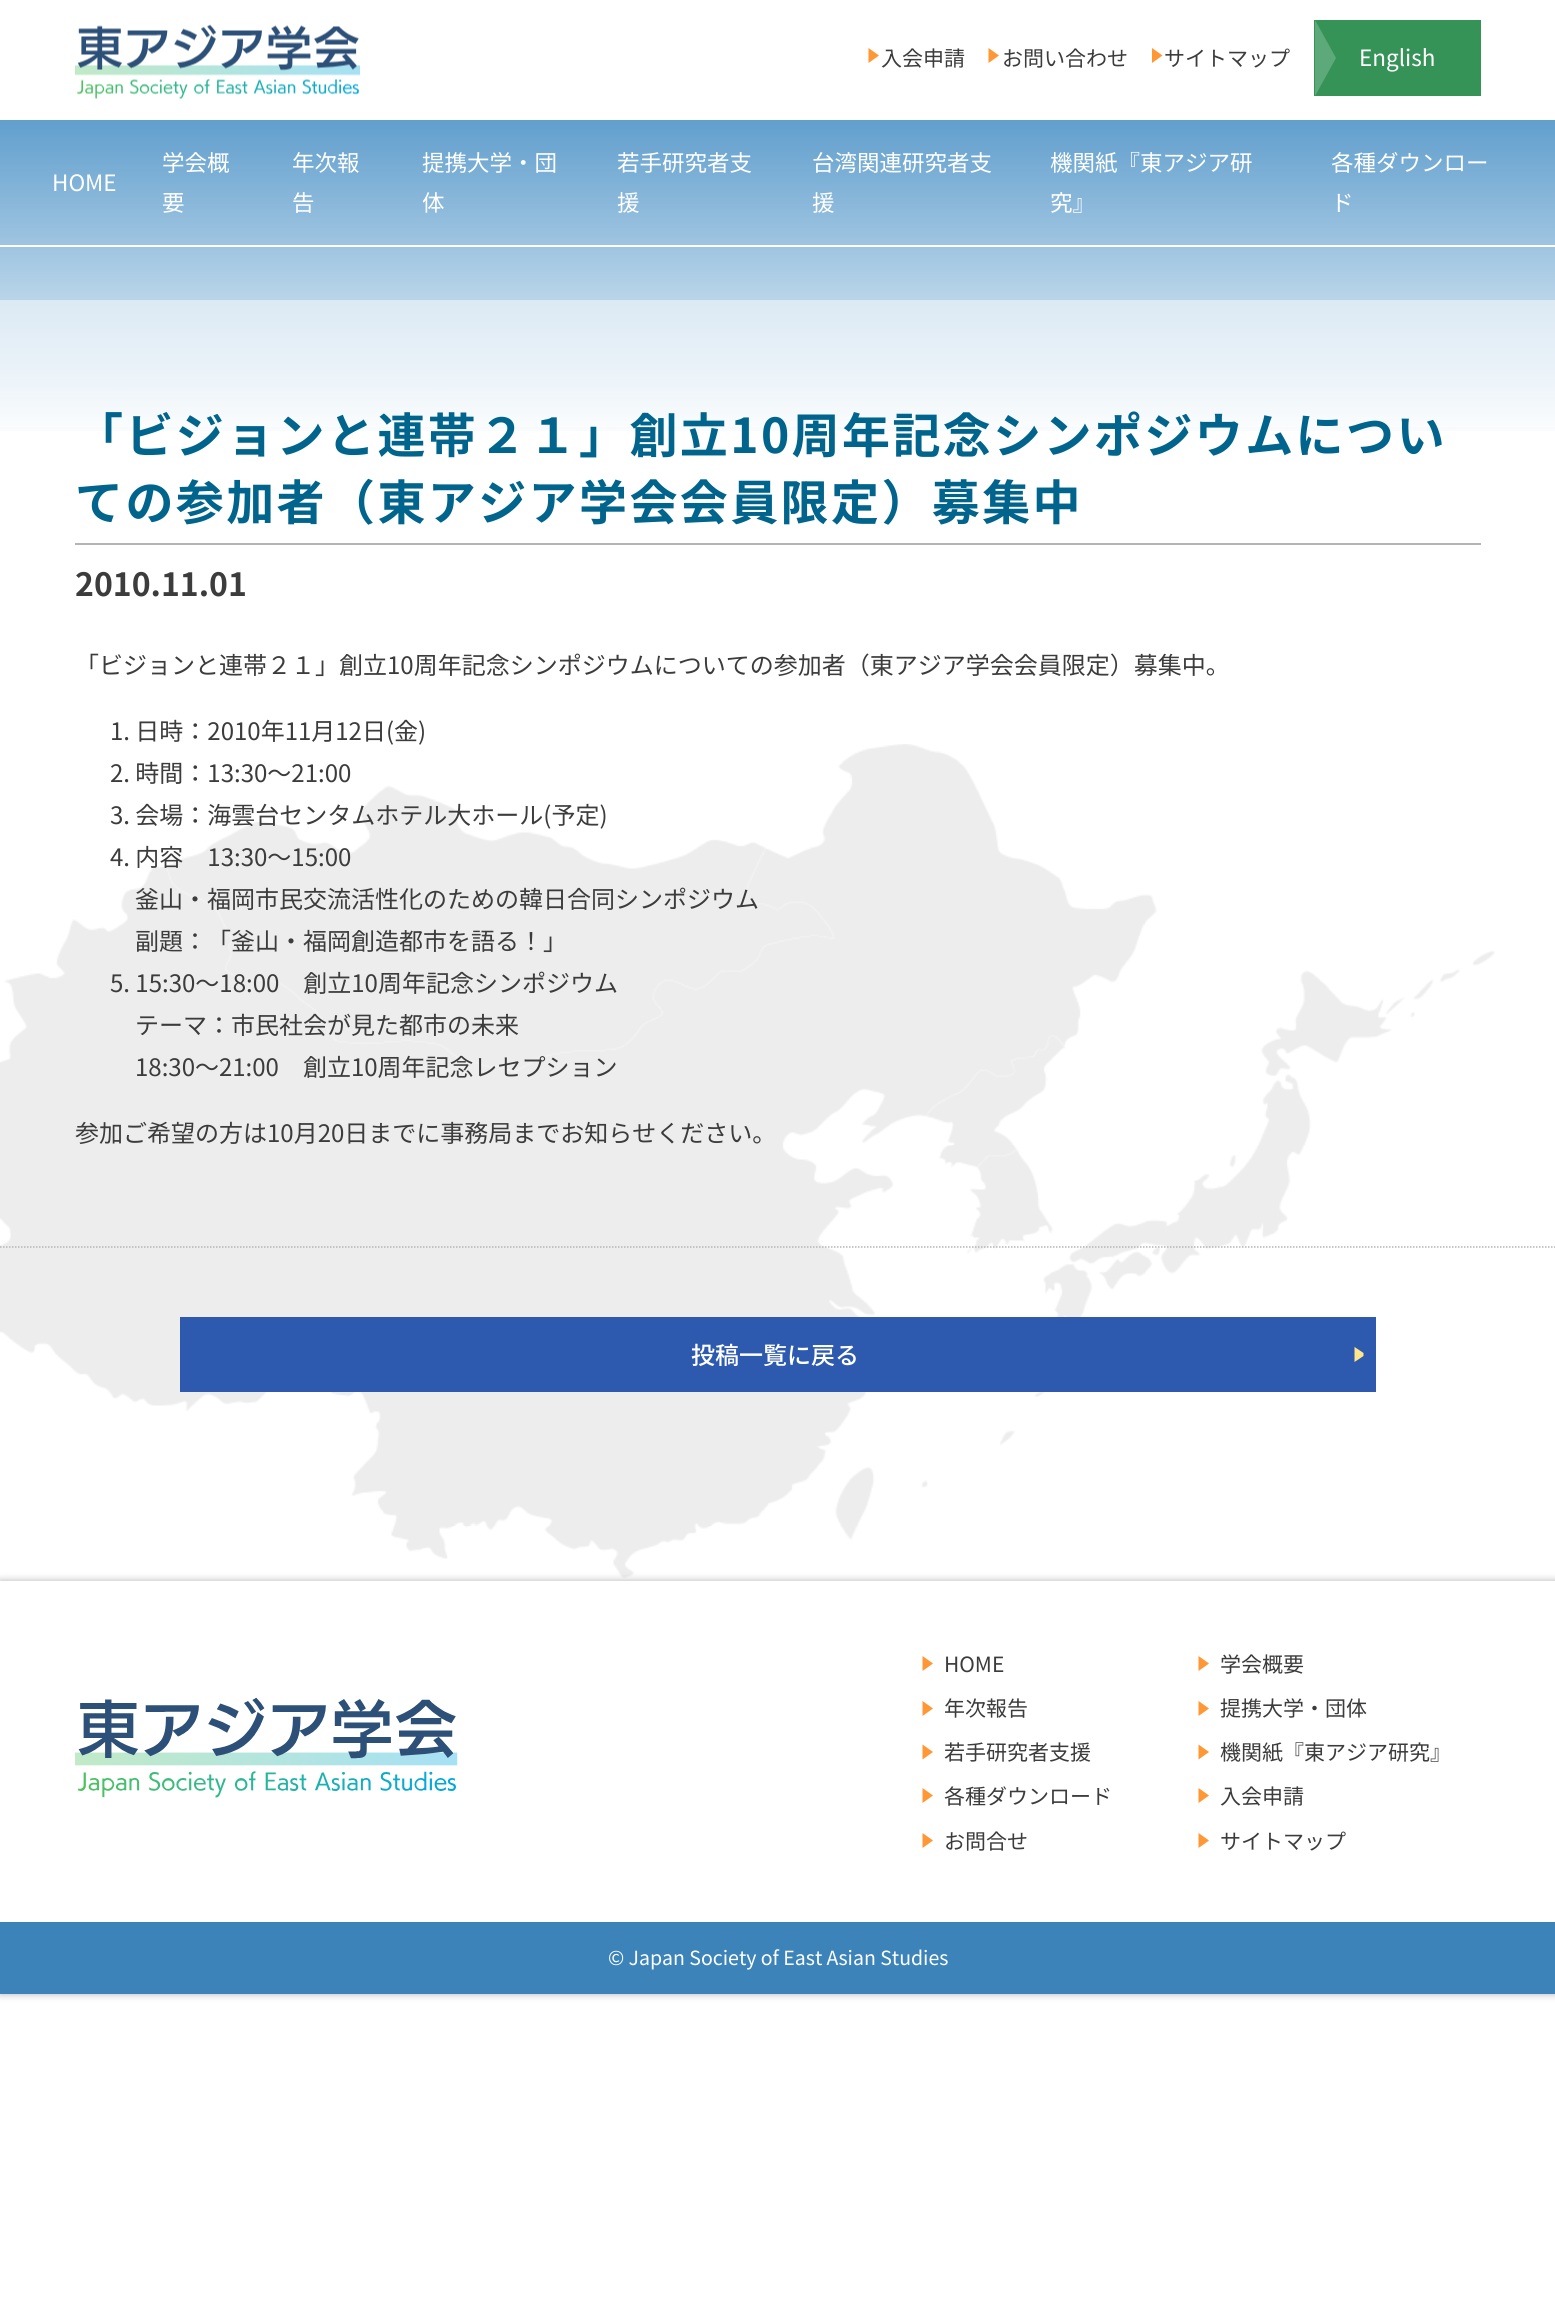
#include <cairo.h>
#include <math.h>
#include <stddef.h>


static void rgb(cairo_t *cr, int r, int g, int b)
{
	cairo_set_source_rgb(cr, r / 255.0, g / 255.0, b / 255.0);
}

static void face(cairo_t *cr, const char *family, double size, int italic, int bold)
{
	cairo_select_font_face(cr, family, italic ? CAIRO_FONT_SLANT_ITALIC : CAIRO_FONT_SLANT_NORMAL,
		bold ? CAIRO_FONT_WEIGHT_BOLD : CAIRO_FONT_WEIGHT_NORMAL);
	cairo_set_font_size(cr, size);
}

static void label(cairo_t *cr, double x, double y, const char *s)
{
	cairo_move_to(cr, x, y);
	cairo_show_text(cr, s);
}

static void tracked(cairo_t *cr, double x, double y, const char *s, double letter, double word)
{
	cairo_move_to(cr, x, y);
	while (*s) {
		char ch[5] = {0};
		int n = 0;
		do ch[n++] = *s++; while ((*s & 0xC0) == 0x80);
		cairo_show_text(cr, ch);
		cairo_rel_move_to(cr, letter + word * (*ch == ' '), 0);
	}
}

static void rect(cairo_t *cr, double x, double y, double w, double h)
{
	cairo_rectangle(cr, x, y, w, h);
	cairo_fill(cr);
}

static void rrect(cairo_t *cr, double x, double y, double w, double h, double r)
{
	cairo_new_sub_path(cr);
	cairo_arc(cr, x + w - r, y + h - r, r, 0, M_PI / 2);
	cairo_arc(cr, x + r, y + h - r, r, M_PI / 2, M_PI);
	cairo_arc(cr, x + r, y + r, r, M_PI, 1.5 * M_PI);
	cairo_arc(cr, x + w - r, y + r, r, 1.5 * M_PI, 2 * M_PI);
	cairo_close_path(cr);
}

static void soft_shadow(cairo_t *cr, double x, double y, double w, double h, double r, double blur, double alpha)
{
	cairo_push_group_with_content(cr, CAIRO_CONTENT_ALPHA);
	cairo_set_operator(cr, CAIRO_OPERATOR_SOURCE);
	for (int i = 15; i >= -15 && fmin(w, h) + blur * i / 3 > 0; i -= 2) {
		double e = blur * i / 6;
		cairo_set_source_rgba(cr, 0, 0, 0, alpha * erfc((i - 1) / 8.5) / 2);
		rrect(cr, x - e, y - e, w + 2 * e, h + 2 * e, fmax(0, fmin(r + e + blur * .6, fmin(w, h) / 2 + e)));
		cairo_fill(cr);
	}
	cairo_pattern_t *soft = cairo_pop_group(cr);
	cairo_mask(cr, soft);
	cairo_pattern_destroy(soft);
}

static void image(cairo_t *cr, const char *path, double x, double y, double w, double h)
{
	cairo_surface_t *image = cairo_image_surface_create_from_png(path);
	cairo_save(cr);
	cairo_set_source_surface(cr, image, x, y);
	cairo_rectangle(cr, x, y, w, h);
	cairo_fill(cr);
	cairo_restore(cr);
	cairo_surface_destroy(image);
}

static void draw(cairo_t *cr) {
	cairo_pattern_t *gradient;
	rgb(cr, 255, 255, 255);
	cairo_paint(cr);
	image(cr, "image0.png", 0, 744, 1495, 834);
	gradient = cairo_pattern_create_linear(778, 0, 778, 1581);
	cairo_pattern_add_color_stop_rgba(gradient, 0, 0, 0.392, 0.686, 0.85);
	cairo_pattern_add_color_stop_rgba(gradient, 0.28, 0, 0.392, 0.686, 0);
	cairo_set_source(cr, gradient);
	cairo_pattern_destroy(gradient);
	rect(cr, 0, 120, 1555, 311);
	rgb(cr, 255, 255, 255);
	rect(cr, 0, 245, 1555, 2);
	image(cr, "image1.png", 75, 24, 285, 76);
	rgb(cr, 255, 152, 52);
	cairo_new_path(cr);
	cairo_move_to(cr, 868.5, 63);
	cairo_line_to(cr, 868.5, 48);
	cairo_line_to(cr, 879, 55.5);
	cairo_close_path(cr);
	cairo_fill(cr);
	face(cr, "Noto Sans JP", 21, 0, 0);
	rgb(cr, 60, 60, 60);
	label(cr, 881, 66, "入会申請");
	rgb(cr, 255, 152, 52);
	cairo_new_path(cr);
	cairo_move_to(cr, 988.5, 63);
	cairo_line_to(cr, 988.5, 48);
	cairo_line_to(cr, 999, 55.5);
	cairo_close_path(cr);
	cairo_fill(cr);
	rgb(cr, 60, 60, 60);
	label(cr, 1002, 66, "お問い合わせ");
	rgb(cr, 255, 152, 52);
	cairo_new_path(cr);
	cairo_move_to(cr, 1152, 63);
	cairo_line_to(cr, 1152, 48);
	cairo_line_to(cr, 1162.5, 55.5);
	cairo_close_path(cr);
	cairo_fill(cr);
	rgb(cr, 60, 60, 60);
	label(cr, 1164, 66, "サイトマップ");
	rgb(cr, 53, 147, 88);
	rect(cr, 1314, 20, 167, 76);
	rgb(cr, 93, 169, 121);
	cairo_new_path(cr);
	cairo_move_to(cr, 1336, 58);
	cairo_line_to(cr, 1315, 20);
	cairo_line_to(cr, 1315, 96);
	cairo_close_path(cr);
	cairo_fill(cr);
	face(cr, "Noto Sans JP", 22.5, 0, 0);
	rgb(cr, 255, 255, 255);
	label(cr, 1359, 66, "English");
	label(cr, 52, 191, "HOME");
	label(cr, 162, 171, "学会概");
	label(cr, 162, 211, "要");
	label(cr, 292, 171, "年次報");
	label(cr, 292, 211, "告");
	label(cr, 422, 171, "提携大学・団");
	label(cr, 422, 211, "体");
	label(cr, 617, 171, "若手研究者支");
	label(cr, 617, 211, "援");
	label(cr, 812, 171, "台湾関連研究者支");
	label(cr, 812, 211, "援");
	label(cr, 1050, 171, "機関紙『東アジア研");
	label(cr, 1050, 211, "究』");
	label(cr, 1331, 171, "各種ダウンロー");
	label(cr, 1331, 211, "ド");
	gradient = cairo_pattern_create_linear(778, 300, 778, 1247);
	cairo_pattern_add_color_stop_rgba(gradient, 0, 1, 1, 1, 0.5);
	cairo_pattern_add_color_stop_rgba(gradient, 0.48, 1, 1, 1, 0);
	cairo_set_source(cr, gradient);
	cairo_pattern_destroy(gradient);
	rect(cr, 0, 300, 1555, 127);
	rgb(cr, 180, 180, 180);
	rect(cr, 75, 543, 1406, 2);
	face(cr, "Noto Sans JP", 48, 0, 1);
	rgb(cr, 0, 100, 140);
	tracked(cr, 75, 453, "「ビジョンと連帯２１」創立10周年記念シンポジウムについ", 2.4, 0);
	tracked(cr, 75, 520, "ての参加者（東アジア学会会員限定）募集中", 2.4, 0);
	face(cr, "Noto Sans JP", 32, 0, 1);
	rgb(cr, 60, 60, 60);
	label(cr, 75, 596, "2010.11.01");
	face(cr, "Noto Sans JP", 24, 0, 0);
	label(cr, 75, 674, "「ビジョンと連帯２１」創立10周年記念シンポジウムについての参加者（東アジア学会会員限定）募集中。");
	label(cr, 110, 740, "1. 日時：2010年11月12日(金)");
	label(cr, 110, 782, "2. 時間：13:30～21:00");
	label(cr, 110, 824, "3. 会場：海雲台センタムホテル大ホール(予定)");
	label(cr, 110, 866, "4. 内容　13:30～15:00");
	label(cr, 135, 908, "釜山・福岡市民交流活性化のための韓日合同シンポジウム");
	label(cr, 135, 950, "副題：「釜山・福岡創造都市を語る！」");
	label(cr, 110, 992, "5. 15:30～18:00　創立10周年記念シンポジウム");
	label(cr, 135, 1034, "テーマ：市民社会が見た都市の未来");
	label(cr, 135, 1076, "18:30～21:00　創立10周年記念レセプション");
	label(cr, 75, 1142, "参加ご希望の方は10月20日までに事務局までお知らせください。");
	cairo_new_path(cr);
	cairo_move_to(cr, 0, 1247);
	cairo_line_to(cr, 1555.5, 1247);
	rgb(cr, 180, 180, 180);
	cairo_set_line_width(cr, 1.5);
	cairo_set_dash(cr, (double[]){1.5, 1.5}, 2, 0);
	cairo_stroke(cr);
	rgb(cr, 45, 89, 174);
	rect(cr, 180, 1317, 1196, 75);
	face(cr, "Noto Sans JP Medium", 24, 0, 0);
	rgb(cr, 255, 255, 255);
	label(cr, 691, 1364, "投稿一覧に戻る");
	rgb(cr, 255, 230, 140);
	cairo_new_path(cr);
	cairo_move_to(cr, 1354.5, 1362);
	cairo_line_to(cr, 1354.5, 1347);
	cairo_line_to(cr, 1363.5, 1353);
	cairo_line_to(cr, 1363.5, 1356);
	cairo_close_path(cr);
	cairo_fill(cr);
	rgb(cr, 0, 0, 0);
	soft_shadow(cr, 0, 1581, 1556, 413, 0, 4, 0.3);
	rgb(cr, 255, 255, 255);
	rect(cr, 0, 1581, 1555, 341);
	image(cr, "image2.png", 75, 1697, 383, 101);
	rgb(cr, 255, 152, 52);
	cairo_new_path(cr);
	cairo_move_to(cr, 922.5, 1671);
	cairo_line_to(cr, 922.5, 1656);
	cairo_line_to(cr, 933, 1663.5);
	cairo_close_path(cr);
	cairo_fill(cr);
	face(cr, "Noto Sans JP", 21, 0, 0);
	rgb(cr, 60, 60, 60);
	label(cr, 944, 1672, "HOME");
	rgb(cr, 255, 152, 52);
	cairo_new_path(cr);
	cairo_move_to(cr, 1198.5, 1671);
	cairo_line_to(cr, 1198.5, 1656);
	cairo_line_to(cr, 1209, 1663.5);
	cairo_close_path(cr);
	cairo_fill(cr);
	rgb(cr, 60, 60, 60);
	label(cr, 1220, 1672, "学会概要");
	rgb(cr, 255, 152, 52);
	cairo_new_path(cr);
	cairo_move_to(cr, 922.5, 1716);
	cairo_line_to(cr, 922.5, 1701);
	cairo_line_to(cr, 933, 1708.5);
	cairo_close_path(cr);
	cairo_fill(cr);
	rgb(cr, 60, 60, 60);
	label(cr, 944, 1716, "年次報告");
	rgb(cr, 255, 152, 52);
	cairo_new_path(cr);
	cairo_move_to(cr, 1198.5, 1716);
	cairo_line_to(cr, 1198.5, 1701);
	cairo_line_to(cr, 1209, 1708.5);
	cairo_close_path(cr);
	cairo_fill(cr);
	rgb(cr, 60, 60, 60);
	label(cr, 1220, 1716, "提携大学・団体");
	rgb(cr, 255, 152, 52);
	cairo_new_path(cr);
	cairo_move_to(cr, 922.5, 1759.5);
	cairo_line_to(cr, 922.5, 1744.5);
	cairo_line_to(cr, 933, 1752);
	cairo_close_path(cr);
	cairo_fill(cr);
	rgb(cr, 60, 60, 60);
	label(cr, 944, 1760, "若手研究者支援");
	rgb(cr, 255, 152, 52);
	cairo_new_path(cr);
	cairo_move_to(cr, 1198.5, 1759.5);
	cairo_line_to(cr, 1198.5, 1744.5);
	cairo_line_to(cr, 1209, 1752);
	cairo_close_path(cr);
	cairo_fill(cr);
	rgb(cr, 60, 60, 60);
	label(cr, 1220, 1760, "機関紙『東アジア研究』");
	rgb(cr, 255, 152, 52);
	cairo_new_path(cr);
	cairo_move_to(cr, 922.5, 1803);
	cairo_line_to(cr, 922.5, 1788);
	cairo_line_to(cr, 933, 1795.5);
	cairo_close_path(cr);
	cairo_fill(cr);
	rgb(cr, 60, 60, 60);
	label(cr, 944, 1804, "各種ダウンロード");
	rgb(cr, 255, 152, 52);
	cairo_new_path(cr);
	cairo_move_to(cr, 1198.5, 1803);
	cairo_line_to(cr, 1198.5, 1788);
	cairo_line_to(cr, 1209, 1795.5);
	cairo_close_path(cr);
	cairo_fill(cr);
	rgb(cr, 60, 60, 60);
	label(cr, 1220, 1804, "入会申請");
	rgb(cr, 255, 152, 52);
	cairo_new_path(cr);
	cairo_move_to(cr, 922.5, 1848);
	cairo_line_to(cr, 922.5, 1833);
	cairo_line_to(cr, 933, 1840.5);
	cairo_close_path(cr);
	cairo_fill(cr);
	rgb(cr, 60, 60, 60);
	label(cr, 944, 1849, "お問合せ");
	rgb(cr, 255, 152, 52);
	cairo_new_path(cr);
	cairo_move_to(cr, 1198.5, 1848);
	cairo_line_to(cr, 1198.5, 1833);
	cairo_line_to(cr, 1209, 1840.5);
	cairo_close_path(cr);
	cairo_fill(cr);
	rgb(cr, 60, 60, 60);
	label(cr, 1220, 1849, "サイトマップ");
	rgb(cr, 59, 131, 184);
	rect(cr, 0, 1922, 1555, 72);
	face(cr, "Noto Sans JP", 19.5, 0, 0);
	rgb(cr, 255, 255, 255);
	label(cr, 608, 1965, "© Japan Society of East Asian Studies");
}

int main(void) {
	cairo_surface_t *surface = cairo_image_surface_create(CAIRO_FORMAT_RGB24, 1555, 2321);
	cairo_t *cr = cairo_create(surface);
	cairo_font_options_t *options = cairo_font_options_create();
	cairo_font_options_set_hint_metrics(options, CAIRO_HINT_METRICS_OFF);
	cairo_font_options_set_hint_style(options, CAIRO_HINT_STYLE_NONE);
	cairo_set_font_options(cr, options);
	cairo_set_miter_limit(cr, 4);
	draw(cr);
	cairo_surface_write_to_png(surface, "render.png");
	cairo_font_options_destroy(options);
	cairo_destroy(cr);
	cairo_surface_destroy(surface);
	return 0;
}
